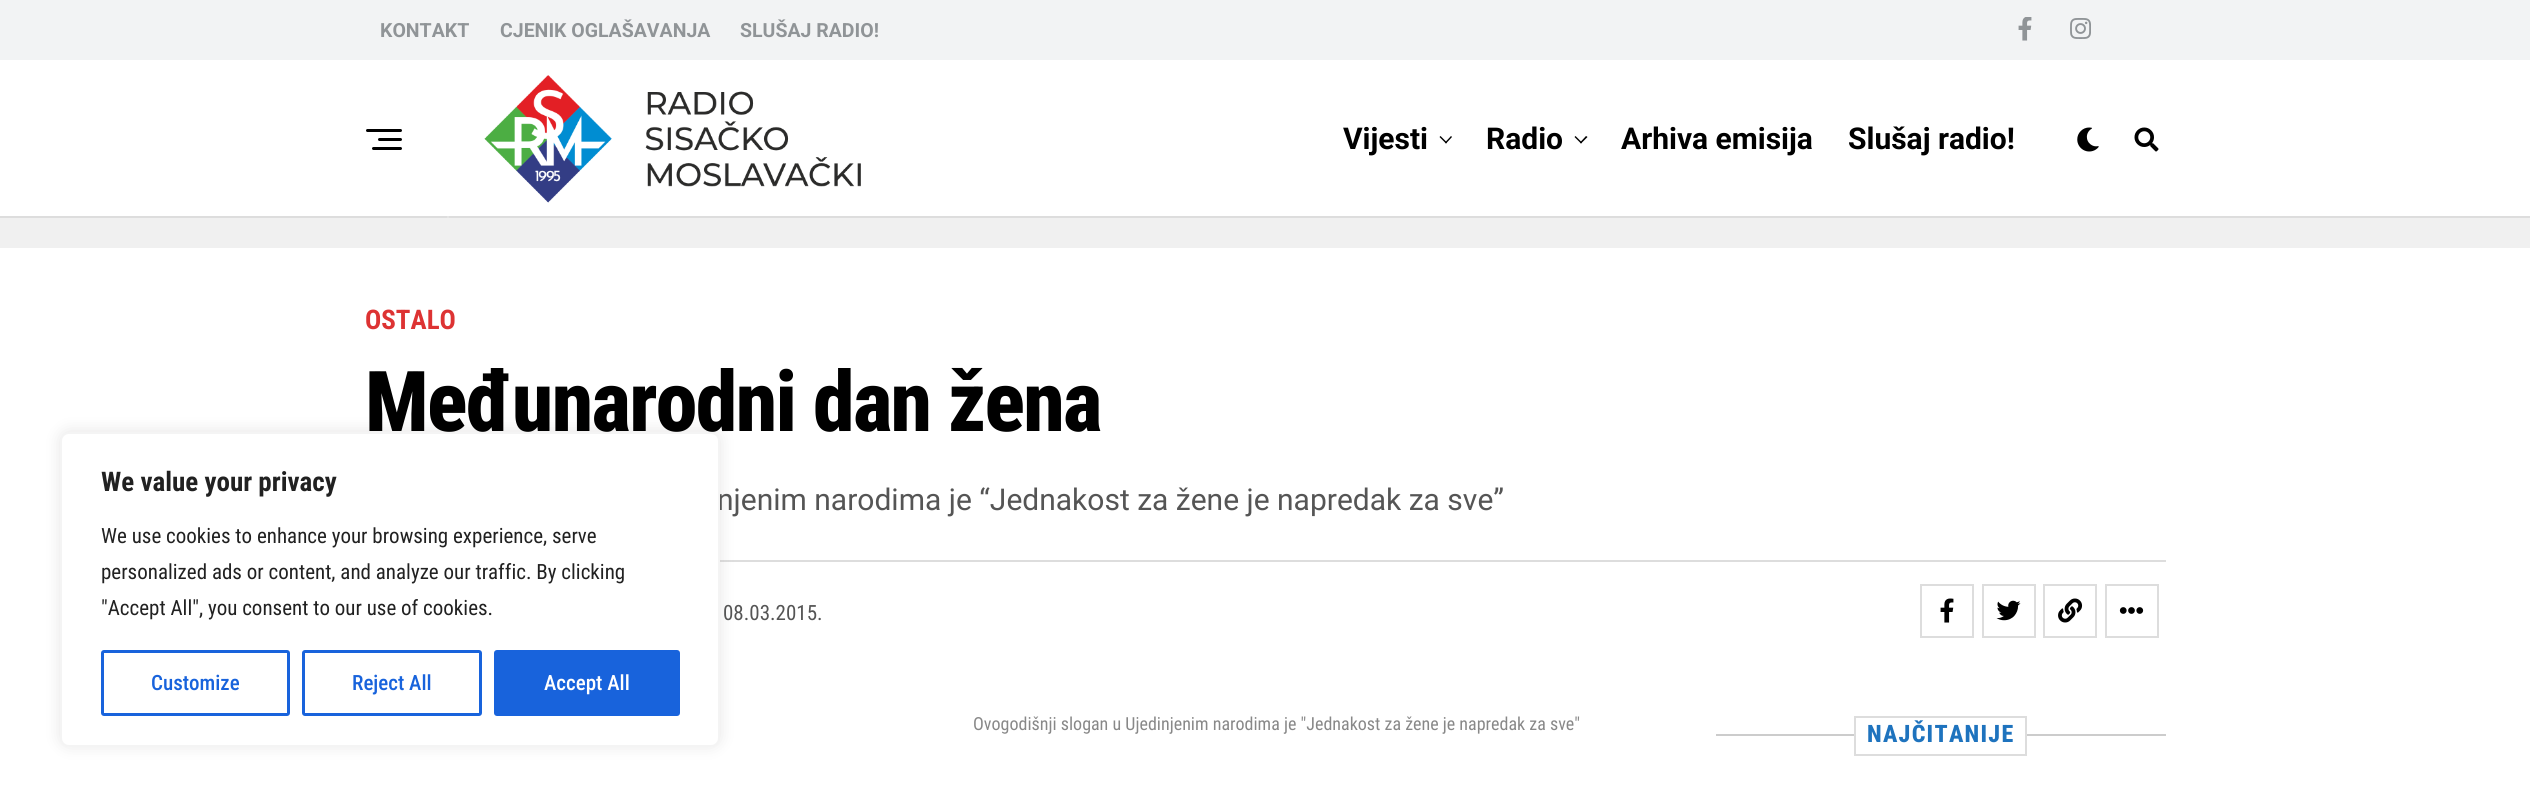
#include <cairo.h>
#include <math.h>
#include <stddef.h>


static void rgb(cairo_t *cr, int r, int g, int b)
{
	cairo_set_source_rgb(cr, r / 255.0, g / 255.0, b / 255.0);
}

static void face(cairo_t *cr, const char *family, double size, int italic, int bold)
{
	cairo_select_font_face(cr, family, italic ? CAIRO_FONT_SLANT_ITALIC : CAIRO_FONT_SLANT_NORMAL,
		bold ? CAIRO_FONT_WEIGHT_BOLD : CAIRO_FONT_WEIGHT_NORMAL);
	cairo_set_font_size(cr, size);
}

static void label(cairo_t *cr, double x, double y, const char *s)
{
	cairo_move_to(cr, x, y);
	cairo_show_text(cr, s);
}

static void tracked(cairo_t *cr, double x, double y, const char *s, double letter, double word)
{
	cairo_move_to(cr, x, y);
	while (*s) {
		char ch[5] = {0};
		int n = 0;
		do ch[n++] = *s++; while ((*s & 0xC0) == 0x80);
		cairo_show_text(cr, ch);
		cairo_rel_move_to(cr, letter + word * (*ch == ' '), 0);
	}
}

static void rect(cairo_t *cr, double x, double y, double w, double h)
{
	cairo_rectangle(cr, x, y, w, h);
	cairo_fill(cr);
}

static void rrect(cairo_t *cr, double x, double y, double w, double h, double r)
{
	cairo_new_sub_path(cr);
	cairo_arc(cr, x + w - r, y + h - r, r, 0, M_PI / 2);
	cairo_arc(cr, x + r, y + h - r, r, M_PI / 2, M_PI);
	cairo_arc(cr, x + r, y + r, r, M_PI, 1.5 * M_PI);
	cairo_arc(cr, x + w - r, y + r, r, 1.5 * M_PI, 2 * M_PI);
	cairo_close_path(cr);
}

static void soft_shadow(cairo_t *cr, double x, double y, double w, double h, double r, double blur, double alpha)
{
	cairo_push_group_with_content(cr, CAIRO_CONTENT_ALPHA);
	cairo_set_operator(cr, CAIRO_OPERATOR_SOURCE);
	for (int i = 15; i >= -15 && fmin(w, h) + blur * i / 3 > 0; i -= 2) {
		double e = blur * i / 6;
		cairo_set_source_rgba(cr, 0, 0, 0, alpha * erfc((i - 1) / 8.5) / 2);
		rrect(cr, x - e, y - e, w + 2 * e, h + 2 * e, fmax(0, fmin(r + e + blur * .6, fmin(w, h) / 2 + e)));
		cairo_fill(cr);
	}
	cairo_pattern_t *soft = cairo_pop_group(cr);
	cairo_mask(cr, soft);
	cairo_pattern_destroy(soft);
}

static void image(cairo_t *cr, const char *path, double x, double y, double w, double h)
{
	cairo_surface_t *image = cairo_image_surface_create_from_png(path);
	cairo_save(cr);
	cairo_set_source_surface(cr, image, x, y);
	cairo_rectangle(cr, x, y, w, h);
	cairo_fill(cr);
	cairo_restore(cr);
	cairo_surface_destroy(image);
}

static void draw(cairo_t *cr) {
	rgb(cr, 240, 240, 240);
	cairo_paint(cr);
	rgb(cr, 255, 255, 255);
	rect(cr, 0, 248, 2530, 559);
	rgb(cr, 221, 221, 221);
	rect(cr, 720, 560, 1446, 2);
	rgb(cr, 172, 171, 171);
	soft_shadow(cr, 60, 431, 660, 315, 9, 7.5, 0.3);
	face(cr, "Roboto", 30, 0, 0);
	rgb(cr, 85, 85, 85);
	label(cr, 717, 510, "njenim narodima je “Jednakost za žene je napredak za sve”");
	rgb(cr, 255, 255, 255);
	rrect(cr, 61, 433, 658, 313, 8);
	cairo_fill_preserve(cr);
	rgb(cr, 244, 244, 244);
	cairo_stroke(cr);
	face(cr, "Roboto Condensed", 27, 0, 1);
	rgb(cr, 33, 33, 33);
	label(cr, 101, 491, "We value your privacy");
	face(cr, "Roboto Condensed", 21, 0, 0);
	label(cr, 101, 543, "We use cookies to enhance your browsing experience, serve");
	label(cr, 101, 579, "personalized ads or content, and analyze our traffic. By clicking");
	label(cr, 101, 615, "\"Accept All\", you consent to our use of cookies.");
	rrect(cr, 102.5, 651.5, 186, 63, 1.5);
	rgb(cr, 24, 99, 220);
	cairo_set_line_width(cr, 3);
	cairo_stroke(cr);
	face(cr, "Roboto Condensed Medium", 21, 0, 0);
	label(cr, 151, 690, "Customize");
	rrect(cr, 303.5, 651.5, 177, 63, 1.5);
	cairo_stroke(cr);
	label(cr, 352, 690, "Reject All");
	rrect(cr, 495.5, 651.5, 183, 63, 1.5);
	cairo_fill_preserve(cr);
	cairo_stroke(cr);
	rgb(cr, 255, 255, 255);
	label(cr, 544, 690, "Accept All");
	rgb(cr, 242, 243, 244);
	rect(cr, 0, 0, 2530, 60);
	face(cr, "Roboto", 19.5, 0, 1);
	rgb(cr, 144, 148, 151);
	label(cr, 380, 37, "KONTAKT");
	label(cr, 500, 37, "CJENIK OGLAŠAVANJA");
	label(cr, 740, 37, "SLUŠAJ RADIO!");
	image(cr, "image0.png", 2018, 17, 14, 24);
	image(cr, "image1.png", 2070, 18, 21, 21);
	rgb(cr, 255, 255, 255);
	rect(cr, 0, 60, 2530, 156);
	rect(cr, 447, 216, 2, 2);
	rgb(cr, 221, 221, 221);
	rect(cr, 0, 216, 2530, 2);
	rgb(cr, 228, 228, 228);
	rect(cr, 447, 216, 2, 2);
	rgb(cr, 0, 0, 0);
	rrect(cr, 366, 129, 36, 3, 1.5);
	cairo_fill(cr);
	rrect(cr, 378, 138, 24, 3, 1.5);
	cairo_fill(cr);
	rrect(cr, 372, 147, 30, 3, 1.5);
	cairo_fill(cr);
	image(cr, "image2.png", 484, 75, 377, 128);
	face(cr, "Roboto", 30, 0, 1);
	label(cr, 1343, 149, "Vijesti");
	cairo_new_path(cr);
	cairo_move_to(cr, 1451, 136);
	cairo_line_to(cr, 1452, 137);
	cairo_line_to(cr, 1446, 143.5);
	cairo_line_to(cr, 1445, 142.5);
	cairo_close_path(cr);
	cairo_fill(cr);
	cairo_new_path(cr);
	cairo_move_to(cr, 1440.5, 136);
	cairo_line_to(cr, 1447, 142.5);
	cairo_line_to(cr, 1446, 143.5);
	cairo_line_to(cr, 1439.5, 137);
	cairo_close_path(cr);
	cairo_fill(cr);
	label(cr, 1486, 149, "Radio");
	cairo_new_path(cr);
	cairo_move_to(cr, 1586, 136);
	cairo_line_to(cr, 1587.5, 137);
	cairo_line_to(cr, 1581, 143.5);
	cairo_line_to(cr, 1580, 142.5);
	cairo_close_path(cr);
	cairo_fill(cr);
	cairo_new_path(cr);
	cairo_move_to(cr, 1575.5, 136);
	cairo_line_to(cr, 1582, 142.5);
	cairo_line_to(cr, 1581, 143.5);
	cairo_line_to(cr, 1574.5, 137);
	cairo_close_path(cr);
	cairo_fill(cr);
	label(cr, 1621, 149, "Arhiva emisija");
	label(cr, 1848, 149, "Slušaj radio!");
	image(cr, "image3.png", 2077, 127, 22, 25);
	image(cr, "image4.png", 2134, 127, 25, 25);
	face(cr, "Roboto Condensed", 27, 0, 1);
	rgb(cr, 221, 51, 51);
	label(cr, 365, 329, "OSTALO");
	face(cr, "Roboto Condensed ExtraBold", 84, 0, 0);
	rgb(cr, 0, 0, 0);
	tracked(cr, 365, 431, "Međunarodni dan žena", -1.7, 0);
	face(cr, "Roboto Condensed", 21, 0, 0);
	rgb(cr, 85, 85, 85);
	label(cr, 723, 620, "08.03.2015.");
	cairo_rectangle(cr, 1921, 585, 52, 52);
	rgb(cr, 221, 221, 221);
	cairo_set_line_width(cr, 2);
	cairo_stroke(cr);
	image(cr, "image5.png", 1940, 598, 14, 25);
	cairo_rectangle(cr, 1983, 585, 52, 52);
	cairo_stroke(cr);
	image(cr, "image6.png", 1996, 600, 25, 21);
	cairo_rectangle(cr, 2044, 585, 52, 52);
	cairo_stroke(cr);
	image(cr, "image7.png", 2058, 598, 25, 25);
	cairo_rectangle(cr, 2106, 585, 52, 52);
	cairo_stroke(cr);
	image(cr, "image8.png", 2119, 607, 25, 7);
	face(cr, "Roboto Condensed", 18, 0, 0);
	rgb(cr, 136, 136, 136);
	label(cr, 973, 730, "Ovogodišnji slogan u Ujedinjenim narodima je \"Jednakost za žene je napredak za sve\"");
	rgb(cr, 204, 204, 204);
	rect(cr, 1716, 734, 450, 2);
	rgb(cr, 255, 255, 255);
	rect(cr, 1856, 734, 169, 2);
	cairo_rectangle(cr, 1855, 717, 171, 38);
	rgb(cr, 221, 221, 221);
	cairo_stroke(cr);
	face(cr, "Roboto Condensed ExtraBold", 24, 0, 0);
	rgb(cr, 30, 115, 190);
	tracked(cr, 1867, 742, "NAJČITANIJE", 1.25, 0);
}

int main(void) {
	cairo_surface_t *surface = cairo_image_surface_create(CAIRO_FORMAT_RGB24, 2530, 807);
	cairo_t *cr = cairo_create(surface);
	cairo_font_options_t *options = cairo_font_options_create();
	cairo_font_options_set_hint_metrics(options, CAIRO_HINT_METRICS_OFF);
	cairo_font_options_set_hint_style(options, CAIRO_HINT_STYLE_NONE);
	cairo_set_font_options(cr, options);
	cairo_set_miter_limit(cr, 4);
	draw(cr);
	cairo_surface_write_to_png(surface, "render.png");
	cairo_font_options_destroy(options);
	cairo_destroy(cr);
	cairo_surface_destroy(surface);
	return 0;
}
